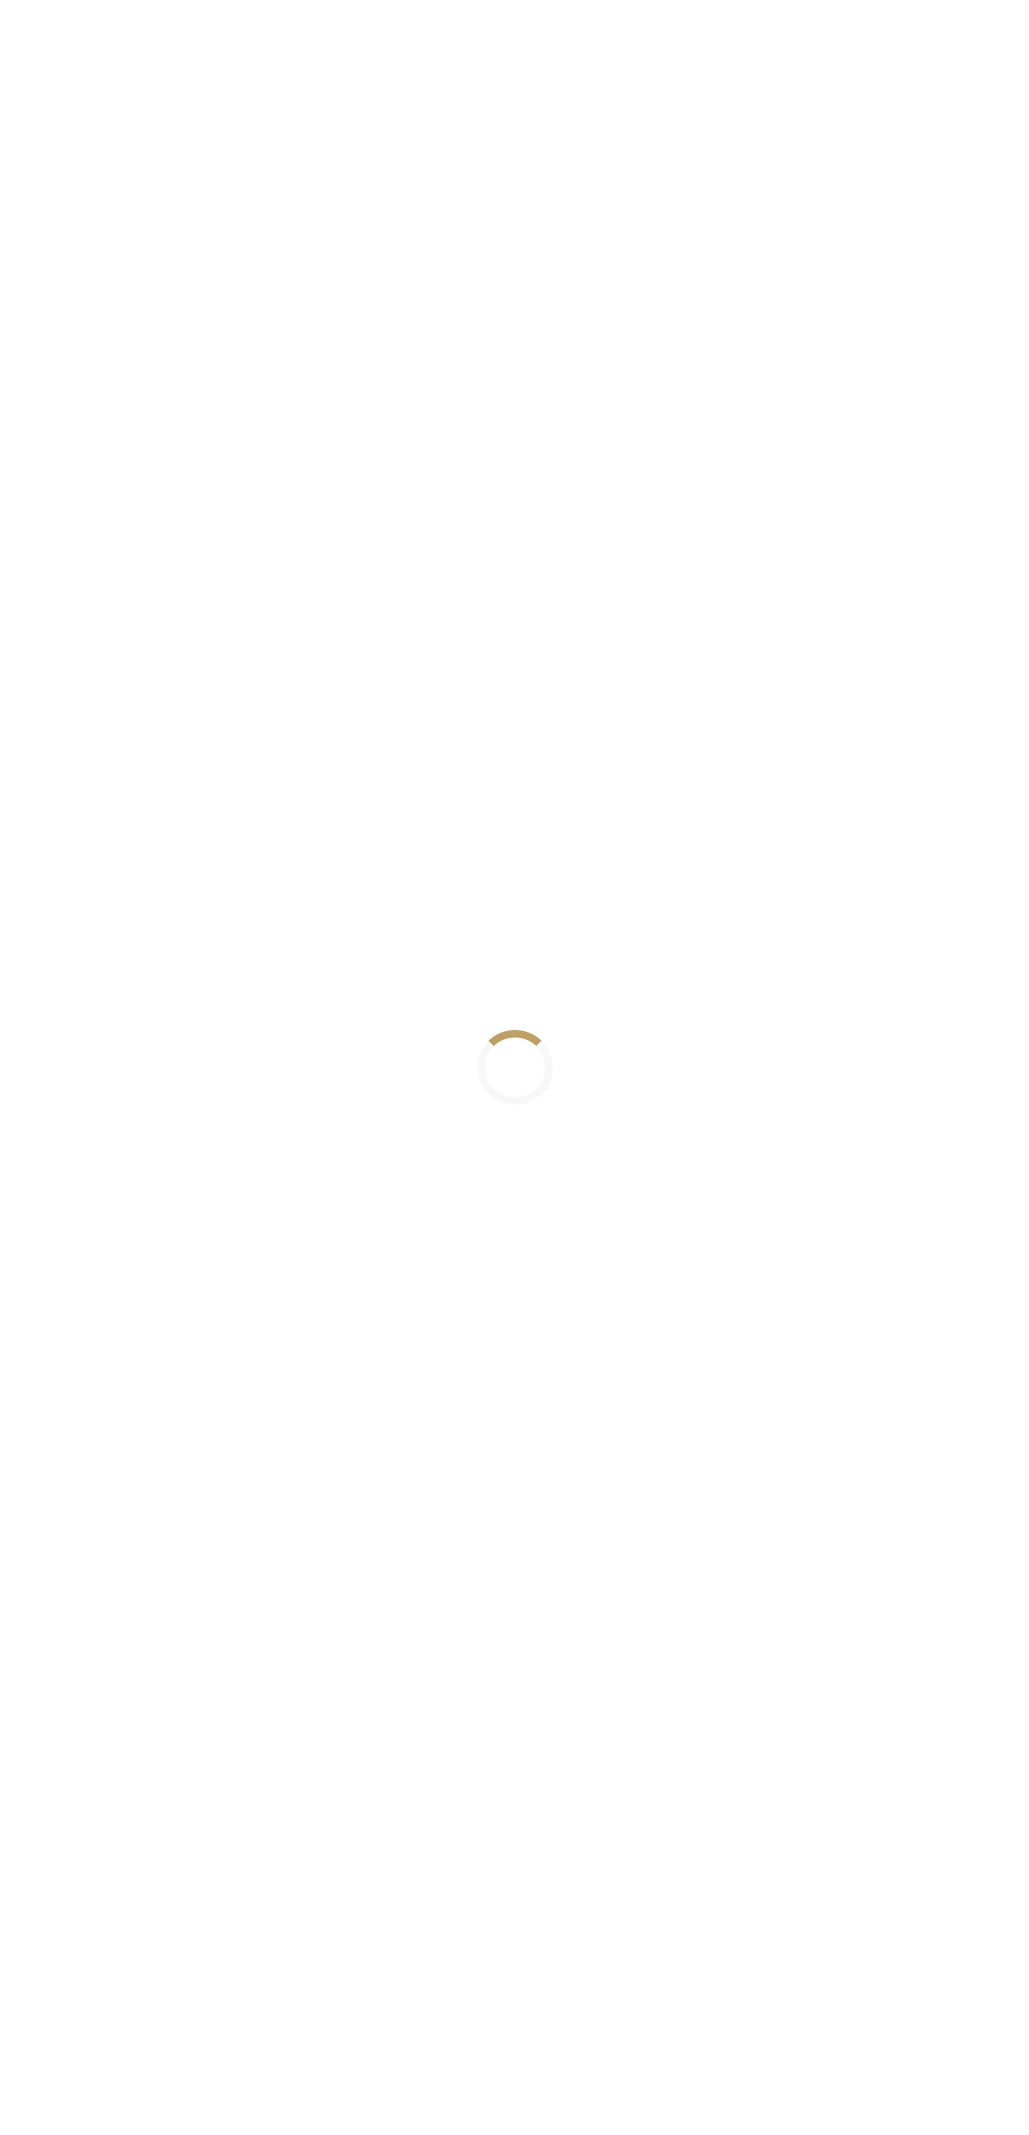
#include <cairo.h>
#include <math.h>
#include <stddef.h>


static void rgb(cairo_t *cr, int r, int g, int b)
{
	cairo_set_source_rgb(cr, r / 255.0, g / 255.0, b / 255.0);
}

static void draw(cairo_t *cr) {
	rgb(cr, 255, 255, 255);
	cairo_paint(cr);
	cairo_new_path(cr);
	cairo_move_to(cr, 491, 1043.5);
	cairo_curve_to(cr, 504, 1030.5, 526, 1030.5, 539, 1043.5);
	rgb(cr, 192, 160, 98);
	cairo_set_line_width(cr, 7.5);
	cairo_stroke(cr);
	cairo_new_path(cr);
	cairo_move_to(cr, 539, 1043.5);
	cairo_curve_to(cr, 545, 1050, 548.5, 1058.5, 549, 1067.5);
	cairo_curve_to(cr, 549, 1108, 490, 1113.5, 482, 1074);
	cairo_curve_to(cr, 479.5, 1063, 483, 1051.5, 491, 1043.5);
	rgb(cr, 248, 248, 248);
	cairo_stroke(cr);
}

int main(void) {
	cairo_surface_t *surface = cairo_image_surface_create(CAIRO_FORMAT_RGB24, 1029, 2135);
	cairo_t *cr = cairo_create(surface);
	cairo_font_options_t *options = cairo_font_options_create();
	cairo_font_options_set_hint_metrics(options, CAIRO_HINT_METRICS_OFF);
	cairo_font_options_set_hint_style(options, CAIRO_HINT_STYLE_NONE);
	cairo_set_font_options(cr, options);
	cairo_set_miter_limit(cr, 4);
	draw(cr);
	cairo_surface_write_to_png(surface, "render.png");
	cairo_font_options_destroy(options);
	cairo_destroy(cr);
	cairo_surface_destroy(surface);
	return 0;
}
